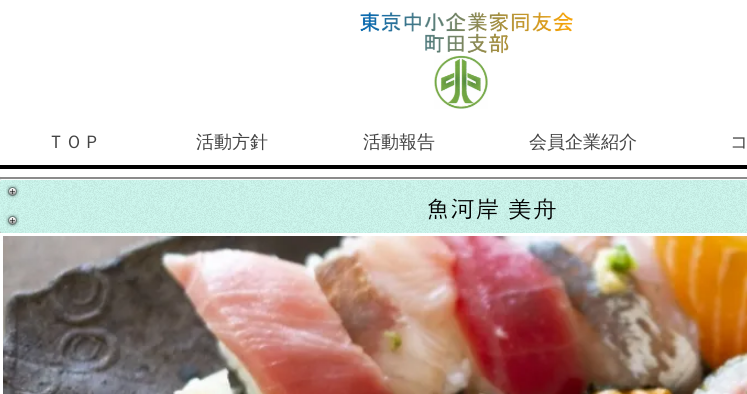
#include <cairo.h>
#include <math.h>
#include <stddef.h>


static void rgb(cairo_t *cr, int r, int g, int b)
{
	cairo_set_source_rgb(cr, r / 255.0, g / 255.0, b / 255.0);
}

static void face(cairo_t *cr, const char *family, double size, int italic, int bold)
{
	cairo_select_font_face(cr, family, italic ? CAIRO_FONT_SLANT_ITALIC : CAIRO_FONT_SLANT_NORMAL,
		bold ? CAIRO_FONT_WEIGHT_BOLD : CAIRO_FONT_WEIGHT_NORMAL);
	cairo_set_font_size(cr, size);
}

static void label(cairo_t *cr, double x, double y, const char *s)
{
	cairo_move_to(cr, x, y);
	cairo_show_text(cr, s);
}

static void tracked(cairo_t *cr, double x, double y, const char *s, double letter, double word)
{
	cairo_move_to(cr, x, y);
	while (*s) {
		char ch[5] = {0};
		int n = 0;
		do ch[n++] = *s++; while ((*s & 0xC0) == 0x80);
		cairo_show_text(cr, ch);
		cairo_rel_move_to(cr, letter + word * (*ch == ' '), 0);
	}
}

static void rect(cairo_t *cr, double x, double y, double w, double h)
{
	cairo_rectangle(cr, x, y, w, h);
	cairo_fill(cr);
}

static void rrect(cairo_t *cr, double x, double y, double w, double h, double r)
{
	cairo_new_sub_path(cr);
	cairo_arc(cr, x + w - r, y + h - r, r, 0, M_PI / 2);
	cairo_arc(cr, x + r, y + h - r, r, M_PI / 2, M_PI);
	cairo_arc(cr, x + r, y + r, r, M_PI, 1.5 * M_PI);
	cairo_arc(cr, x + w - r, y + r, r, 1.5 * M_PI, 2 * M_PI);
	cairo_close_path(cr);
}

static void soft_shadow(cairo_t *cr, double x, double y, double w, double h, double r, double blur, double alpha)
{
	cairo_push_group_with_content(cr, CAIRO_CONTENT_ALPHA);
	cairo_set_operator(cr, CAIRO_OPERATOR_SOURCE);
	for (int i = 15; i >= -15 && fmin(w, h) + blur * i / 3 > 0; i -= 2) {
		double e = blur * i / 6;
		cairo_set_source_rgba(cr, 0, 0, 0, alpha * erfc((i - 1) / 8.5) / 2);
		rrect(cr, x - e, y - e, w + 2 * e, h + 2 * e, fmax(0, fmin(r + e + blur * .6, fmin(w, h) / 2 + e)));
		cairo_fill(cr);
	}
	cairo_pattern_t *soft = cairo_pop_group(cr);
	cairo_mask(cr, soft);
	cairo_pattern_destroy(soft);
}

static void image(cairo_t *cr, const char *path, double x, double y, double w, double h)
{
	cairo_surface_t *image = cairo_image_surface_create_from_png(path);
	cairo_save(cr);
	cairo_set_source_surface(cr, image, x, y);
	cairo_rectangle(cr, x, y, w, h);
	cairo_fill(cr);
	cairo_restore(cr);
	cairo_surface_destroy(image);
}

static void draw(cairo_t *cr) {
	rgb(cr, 255, 255, 255);
	cairo_paint(cr);
	image(cr, "image0.png", 360, 12, 213, 97);
	rgb(cr, 0, 0, 0);
	rect(cr, 0, 165, 747, 4);
	face(cr, "WenQuanYi Zen Hei Medium", 18, 0, 0);
	rgb(cr, 68, 68, 68);
	label(cr, 47, 148, "ＴＯＰ");
	label(cr, 196, 148, "活動方針");
	label(cr, 363, 148, "活動報告");
	label(cr, 529, 148, "会員企業紹介");
	label(cr, 730, 148, "コ");
	rgb(cr, 0, 0, 0);
	soft_shadow(cr, 0, 181, 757, 54, 2, 2.5, 0.53);
	rgb(cr, 255, 255, 255);
	rect(cr, 1, 176, 746, 1);
	rgb(cr, 139, 139, 139);
	rect(cr, 0, 177, 747, 2);
	rgb(cr, 205, 247, 238);
	rrect(cr, 0, 179, 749, 54, 2);
	cairo_fill(cr);
	image(cr, "image1.png", 0, 179, 747, 54);
	cairo_set_source_rgba(cr, 1, 1, 1, 0.92);
	cairo_new_path(cr);
	cairo_move_to(cr, 2, 180);
	cairo_line_to(cr, 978, 180);
	cairo_curve_to(cr, 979, 180, 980, 181, 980, 182);
	cairo_line_to(cr, 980, 181);
	cairo_curve_to(cr, 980, 180, 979, 179, 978, 179);
	cairo_line_to(cr, 2, 179);
	cairo_curve_to(cr, 1, 179, 0, 180, 0, 181);
	cairo_line_to(cr, 0, 182);
	cairo_curve_to(cr, 0, 181, 1, 180, 2, 180);
	cairo_close_path(cr);
	cairo_fill(cr);
	image(cr, "image2.png", 6, 185, 13, 13);
	image(cr, "image3.png", 6, 214, 13, 13);
	face(cr, "Dotum", 25, 0, 0);
	rgb(cr, 0, 0, 0);
	tracked(cr, 425, 218, "魚河岸 美舟", 0, -1);
	rgb(cr, 255, 255, 255);
	rect(cr, 0, 233, 747, 7);
	image(cr, "image4.png", 3, 236, 744, 158);
}

int main(void) {
	cairo_surface_t *surface = cairo_image_surface_create(CAIRO_FORMAT_RGB24, 747, 394);
	cairo_t *cr = cairo_create(surface);
	cairo_font_options_t *options = cairo_font_options_create();
	cairo_font_options_set_hint_metrics(options, CAIRO_HINT_METRICS_OFF);
	cairo_font_options_set_hint_style(options, CAIRO_HINT_STYLE_NONE);
	cairo_set_font_options(cr, options);
	cairo_set_miter_limit(cr, 4);
	draw(cr);
	cairo_surface_write_to_png(surface, "render.png");
	cairo_font_options_destroy(options);
	cairo_destroy(cr);
	cairo_surface_destroy(surface);
	return 0;
}
